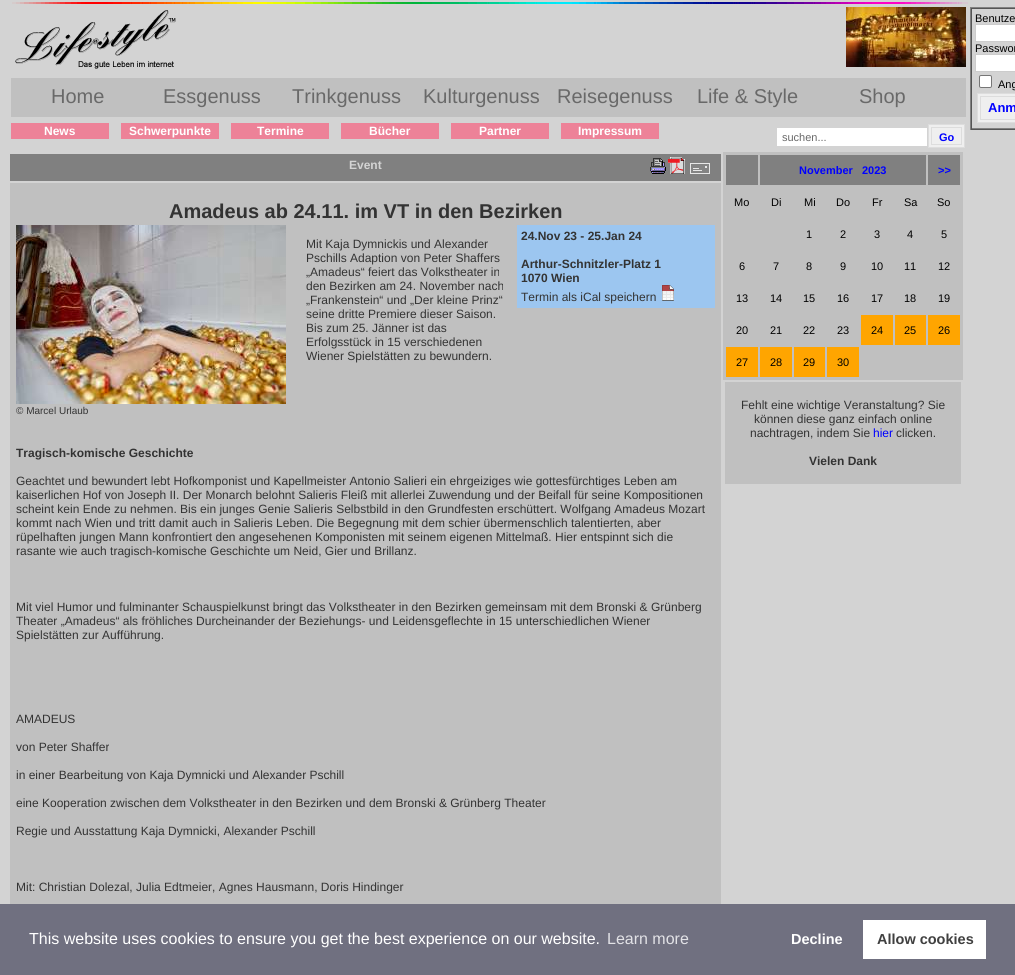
#include <cairo.h>
#include <math.h>
#include <stddef.h>


static void rgb(cairo_t *cr, int r, int g, int b)
{
	cairo_set_source_rgb(cr, r / 255.0, g / 255.0, b / 255.0);
}

static void face(cairo_t *cr, const char *family, double size, int italic, int bold)
{
	cairo_select_font_face(cr, family, italic ? CAIRO_FONT_SLANT_ITALIC : CAIRO_FONT_SLANT_NORMAL,
		bold ? CAIRO_FONT_WEIGHT_BOLD : CAIRO_FONT_WEIGHT_NORMAL);
	cairo_set_font_size(cr, size);
}

static void label(cairo_t *cr, double x, double y, const char *s)
{
	cairo_move_to(cr, x, y);
	cairo_show_text(cr, s);
}

static void rect(cairo_t *cr, double x, double y, double w, double h)
{
	cairo_rectangle(cr, x, y, w, h);
	cairo_fill(cr);
}

static void rrect(cairo_t *cr, double x, double y, double w, double h, double r)
{
	cairo_new_sub_path(cr);
	cairo_arc(cr, x + w - r, y + h - r, r, 0, M_PI / 2);
	cairo_arc(cr, x + r, y + h - r, r, M_PI / 2, M_PI);
	cairo_arc(cr, x + r, y + r, r, M_PI, 1.5 * M_PI);
	cairo_arc(cr, x + w - r, y + r, r, 1.5 * M_PI, 2 * M_PI);
	cairo_close_path(cr);
}

static void image(cairo_t *cr, const char *path, double x, double y, double w, double h)
{
	cairo_surface_t *image = cairo_image_surface_create_from_png(path);
	cairo_save(cr);
	cairo_set_source_surface(cr, image, x, y);
	cairo_rectangle(cr, x, y, w, h);
	cairo_fill(cr);
	cairo_restore(cr);
	cairo_surface_destroy(image);
}

static void draw(cairo_t *cr) {
	rgb(cr, 211, 211, 211);
	cairo_paint(cr);
	image(cr, "image0.png", 12, 2, 956, 2);
	image(cr, "image1.png", 15, 10, 161, 59);
	image(cr, "image2.png", 846, 7, 120, 60);
	rgb(cr, 192, 192, 192);
	rect(cr, 11, 78, 955, 39);
	face(cr, "Liberation Sans", 20, 0, 0);
	rgb(cr, 105, 105, 105);
	label(cr, 51, 103, "Home");
	label(cr, 163, 103, "Essgenuss");
	label(cr, 292, 103, "Trinkgenuss");
	label(cr, 423, 103, "Kulturgenuss");
	label(cr, 557, 103, "Reisegenuss");
	label(cr, 697, 103, "Life & Style");
	label(cr, 859, 103, "Shop");
	rgb(cr, 237, 130, 152);
	rect(cr, 11, 123, 98, 16);
	face(cr, "Liberation Sans", 12, 0, 1);
	rgb(cr, 255, 255, 255);
	label(cr, 44, 135, "News");
	rgb(cr, 237, 130, 152);
	rect(cr, 121, 123, 98, 16);
	rgb(cr, 255, 255, 255);
	label(cr, 129, 135, "Schwerpunkte");
	rgb(cr, 237, 130, 152);
	rect(cr, 231, 123, 98, 16);
	rgb(cr, 255, 255, 255);
	label(cr, 257, 135, "Termine");
	rgb(cr, 237, 130, 152);
	rect(cr, 341, 123, 98, 16);
	rgb(cr, 255, 255, 255);
	label(cr, 369, 135, "Bücher");
	rgb(cr, 237, 130, 152);
	rect(cr, 451, 123, 98, 16);
	rgb(cr, 255, 255, 255);
	label(cr, 479, 135, "Partner");
	rgb(cr, 237, 130, 152);
	rect(cr, 561, 123, 98, 16);
	rgb(cr, 255, 255, 255);
	label(cr, 578, 135, "Impressum");
	rect(cr, 777, 128, 150, 18);
	face(cr, "Liberation Sans", 11, 0, 0);
	rgb(cr, 105, 105, 105);
	label(cr, 782, 141, "suchen...");
	rgb(cr, 239, 239, 239);
	cairo_rectangle(cr, 928.5, 124.5, 36, 23);
	cairo_fill_preserve(cr);
	rgb(cr, 221, 221, 221);
	cairo_set_line_width(cr, 1);
	cairo_stroke(cr);
	cairo_rectangle(cr, 931.5, 127.5, 30, 17);
	cairo_stroke(cr);
	face(cr, "Liberation Sans", 11, 0, 1);
	rgb(cr, 0, 0, 255);
	label(cr, 939, 141, "Go");
	rgb(cr, 128, 128, 128);
	rect(cr, 970, 7, 45, 1);
	rgb(cr, 85, 85, 85);
	rect(cr, 970, 129, 45, 1);
	rgb(cr, 128, 128, 128);
	rect(cr, 970, 7, 1, 123);
	rgb(cr, 85, 85, 85);
	rect(cr, 971, 8, 44, 1);
	rgb(cr, 128, 128, 128);
	rect(cr, 971, 128, 44, 1);
	rgb(cr, 85, 85, 85);
	rect(cr, 971, 8, 1, 121);
	face(cr, "Liberation Sans", 11, 0, 0);
	rgb(cr, 0, 0, 0);
	label(cr, 975, 22, "Benutze");
	rgb(cr, 255, 255, 255);
	cairo_rectangle(cr, 975.5, 24.5, 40, 17);
	cairo_fill_preserve(cr);
	rgb(cr, 204, 204, 204);
	cairo_stroke(cr);
	rgb(cr, 0, 0, 0);
	label(cr, 975, 52, "Passwor");
	rgb(cr, 255, 255, 255);
	cairo_rectangle(cr, 975.5, 54.5, 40, 17);
	cairo_fill_preserve(cr);
	rgb(cr, 204, 204, 204);
	cairo_stroke(cr);
	rgb(cr, 255, 255, 255);
	rrect(cr, 979.5, 75.5, 12, 12, 1.5);
	cairo_fill_preserve(cr);
	rgb(cr, 118, 118, 118);
	cairo_stroke(cr);
	rgb(cr, 0, 0, 0);
	label(cr, 998, 88, "Ang");
	rgb(cr, 239, 239, 239);
	cairo_rectangle(cr, 977.5, 93.5, 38, 29);
	cairo_fill_preserve(cr);
	rgb(cr, 221, 221, 221);
	cairo_stroke(cr);
	cairo_rectangle(cr, 980.5, 96.5, 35, 23);
	cairo_stroke(cr);
	face(cr, "Liberation Sans", 13, 0, 1);
	rgb(cr, 0, 0, 255);
	label(cr, 988, 112, "Anm");
	rgb(cr, 192, 192, 192);
	rect(cr, 10, 183, 711, 721);
	rgb(cr, 128, 128, 128);
	rect(cr, 10, 154, 711, 27);
	face(cr, "Liberation Sans", 12, 0, 1);
	rgb(cr, 211, 211, 211);
	label(cr, 349, 169, "Event");
	image(cr, "image3.png", 650, 158, 16, 16);
	image(cr, "image4.png", 668, 157, 17, 17);
	image(cr, "image5.png", 690, 163, 20, 11);
	face(cr, "Liberation Sans", 20, 0, 1);
	rgb(cr, 51, 51, 51);
	label(cr, 169, 218, "Amadeus ab 24.11. im VT in den Bezirken");
	face(cr, "Liberation Sans", 12, 0, 0);
	label(cr, 306, 248, "Mit Kaja Dymnickis und Alexander");
	label(cr, 306, 262, "Pschills Adaption von Peter Shaffers");
	label(cr, 306, 276, "„Amadeus“ feiert das Volkstheater in");
	label(cr, 306, 290, "den Bezirken am 24. November nach");
	label(cr, 306, 304, "„Frankenstein“ und „Der kleine Prinz“");
	label(cr, 306, 318, "seine dritte Premiere dieser Saison.");
	label(cr, 306, 332, "Bis zum 25. Jänner ist das");
	label(cr, 306, 346, "Erfolgsstück in 15 verschiedenen");
	label(cr, 306, 360, "Wiener Spielstätten zu bewundern.");
	rgb(cr, 156, 198, 240);
	rect(cr, 517, 225, 198, 83);
	face(cr, "Liberation Sans", 12, 0, 1);
	rgb(cr, 51, 51, 51);
	label(cr, 521, 240, "24.Nov 23 - 25.Jan 24");
	label(cr, 521, 268, "Arthur-Schnitzler-Platz 1");
	label(cr, 521, 282, "1070 Wien");
	face(cr, "Liberation Sans", 12, 0, 0);
	label(cr, 521, 301, "Termin als iCal speichern");
	image(cr, "image6.png", 662, 285, 12, 16);
	image(cr, "image7.png", 16, 225, 270, 179);
	face(cr, "Liberation Sans", 10, 0, 0);
	label(cr, 16, 414, "© Marcel Urlaub");
	face(cr, "Liberation Sans", 12, 0, 1);
	label(cr, 16, 457, "Tragisch-komische Geschichte");
	face(cr, "Liberation Sans", 12, 0, 0);
	label(cr, 16, 485, "Geachtet und bewundert lebt Hofkomponist und Kapellmeister Antonio Salieri ein ehrgeiziges wie gottesfürchtiges Leben am");
	label(cr, 16, 499, "kaiserlichen Hof von Joseph II. Der Monarch belohnt Salieris Fleiß mit allerlei Zuwendung und der Beifall für seine Kompositionen");
	label(cr, 16, 513, "scheint kein Ende zu nehmen. Bis ein junges Genie Salieris Selbstbild in den Grundfesten erschüttert. Wolfgang Amadeus Mozart");
	label(cr, 16, 527, "kommt nach Wien und tritt damit auch in Salieris Leben. Die Begegnung mit dem schier übermenschlich talentierten, aber");
	label(cr, 16, 541, "rüpelhaften jungen Mann konfrontiert den angesehenen Komponisten mit seinem eigenen Mittelmaß. Hier entspinnt sich die");
	label(cr, 16, 555, "rasante wie auch tragisch-komische Geschichte um Neid, Gier und Brillanz.");
	label(cr, 16, 611, "Mit viel Humor und fulminanter Schauspielkunst bringt das Volkstheater in den Bezirken gemeinsam mit dem Bronski & Grünberg");
	label(cr, 16, 625, "Theater „Amadeus“ als fröhliches Durcheinander der Beziehungs- und Leidensgeflechte in 15 unterschiedlichen Wiener");
	label(cr, 16, 639, "Spielstätten zur Aufführung.");
	label(cr, 16, 723, "AMADEUS");
	label(cr, 16, 751, "von Peter Shaffer");
	label(cr, 16, 779, "in einer Bearbeitung von Kaja Dymnicki und Alexander Pschill");
	label(cr, 16, 807, "eine Kooperation zwischen dem Volkstheater in den Bezirken und dem Bronski & Grünberg Theater");
	label(cr, 16, 835, "Regie und Ausstattung Kaja Dymnicki, Alexander Pschill");
	label(cr, 16, 891, "Mit: Christian Dolezal, Julia Edtmeier, Agnes Hausmann, Doris Hindinger");
	rgb(cr, 192, 192, 192);
	rect(cr, 723, 152, 240, 228);
	rgb(cr, 128, 128, 128);
	rect(cr, 726, 155, 32, 30);
	rect(cr, 760, 155, 166, 30);
	face(cr, "Liberation Sans", 11, 0, 1);
	rgb(cr, 0, 0, 255);
	label(cr, 799, 174, "November   2023");
	rgb(cr, 128, 128, 128);
	rect(cr, 928, 155, 32, 30);
	rgb(cr, 0, 0, 255);
	label(cr, 938, 174, ">>");
	face(cr, "Liberation Sans", 11, 0, 0);
	rgb(cr, 0, 0, 0);
	label(cr, 734, 206, "Mo");
	label(cr, 771, 206, "Di");
	label(cr, 804, 206, "Mi");
	label(cr, 836, 206, "Do");
	label(cr, 872, 206, "Fr");
	label(cr, 904, 206, "Sa");
	label(cr, 937, 206, "So");
	label(cr, 806, 238, "1");
	label(cr, 840, 238, "2");
	label(cr, 874, 238, "3");
	label(cr, 907, 238, "4");
	label(cr, 941, 238, "5");
	label(cr, 739, 270, "6");
	label(cr, 773, 270, "7");
	label(cr, 806, 270, "8");
	label(cr, 840, 270, "9");
	label(cr, 871, 270, "10");
	label(cr, 904, 270, "11");
	label(cr, 938, 270, "12");
	label(cr, 736, 302, "13");
	label(cr, 770, 302, "14");
	label(cr, 803, 302, "15");
	label(cr, 837, 302, "16");
	label(cr, 871, 302, "17");
	label(cr, 904, 302, "18");
	label(cr, 938, 302, "19");
	label(cr, 736, 334, "20");
	label(cr, 770, 334, "21");
	label(cr, 803, 334, "22");
	label(cr, 837, 334, "23");
	rgb(cr, 255, 165, 0);
	rect(cr, 861, 315, 32, 30);
	rgb(cr, 0, 0, 0);
	label(cr, 871, 334, "24");
	rgb(cr, 255, 165, 0);
	rect(cr, 895, 315, 31, 30);
	rgb(cr, 0, 0, 0);
	label(cr, 904, 334, "25");
	rgb(cr, 255, 165, 0);
	rect(cr, 928, 315, 32, 30);
	rgb(cr, 0, 0, 0);
	label(cr, 938, 334, "26");
	rgb(cr, 255, 165, 0);
	rect(cr, 726, 347, 32, 30);
	rgb(cr, 0, 0, 0);
	label(cr, 736, 366, "27");
	rgb(cr, 255, 165, 0);
	rect(cr, 760, 347, 32, 30);
	rgb(cr, 0, 0, 0);
	label(cr, 770, 366, "28");
	rgb(cr, 255, 165, 0);
	rect(cr, 794, 347, 31, 30);
	rgb(cr, 0, 0, 0);
	label(cr, 803, 366, "29");
	rgb(cr, 255, 165, 0);
	rect(cr, 827, 347, 32, 30);
	rgb(cr, 0, 0, 0);
	label(cr, 837, 366, "30");
	rgb(cr, 192, 192, 192);
	rect(cr, 725, 382, 236, 102);
	face(cr, "Liberation Sans", 12, 0, 0);
	rgb(cr, 51, 51, 51);
	label(cr, 741, 409, "Fehlt eine wichtige Veranstaltung? Sie");
	label(cr, 754, 423, "können diese ganz einfach online");
	label(cr, 750, 437, "nachtragen, indem Sie");
	rgb(cr, 0, 0, 255);
	label(cr, 873, 437, "hier");
	rgb(cr, 51, 51, 51);
	label(cr, 896, 437, "clicken.");
	face(cr, "Liberation Sans", 12, 0, 1);
	label(cr, 809, 465, "Vielen Dank");
	rgb(cr, 112, 112, 128);
	rect(cr, 0, 904, 1015, 71);
	face(cr, "Liberation Sans", 16, 0, 0);
	rgb(cr, 255, 255, 255);
	label(cr, 29, 944, "This website uses cookies to ensure you get the best experience on our website.");
	rgb(cr, 226, 226, 230);
	label(cr, 607, 944, "Learn more");
	face(cr, "Liberation Sans", 14.5, 0, 1);
	rgb(cr, 255, 255, 255);
	label(cr, 791, 944, "Decline");
	rect(cr, 863, 920, 123, 39);
	rgb(cr, 64, 64, 64);
	label(cr, 877, 944, "Allow cookies");
}

int main(void) {
	cairo_surface_t *surface = cairo_image_surface_create(CAIRO_FORMAT_RGB24, 1015, 975);
	cairo_t *cr = cairo_create(surface);
	cairo_font_options_t *options = cairo_font_options_create();
	cairo_font_options_set_hint_metrics(options, CAIRO_HINT_METRICS_OFF);
	cairo_font_options_set_hint_style(options, CAIRO_HINT_STYLE_NONE);
	cairo_set_font_options(cr, options);
	cairo_set_miter_limit(cr, 4);
	draw(cr);
	cairo_surface_write_to_png(surface, "render.png");
	cairo_font_options_destroy(options);
	cairo_destroy(cr);
	cairo_surface_destroy(surface);
	return 0;
}
